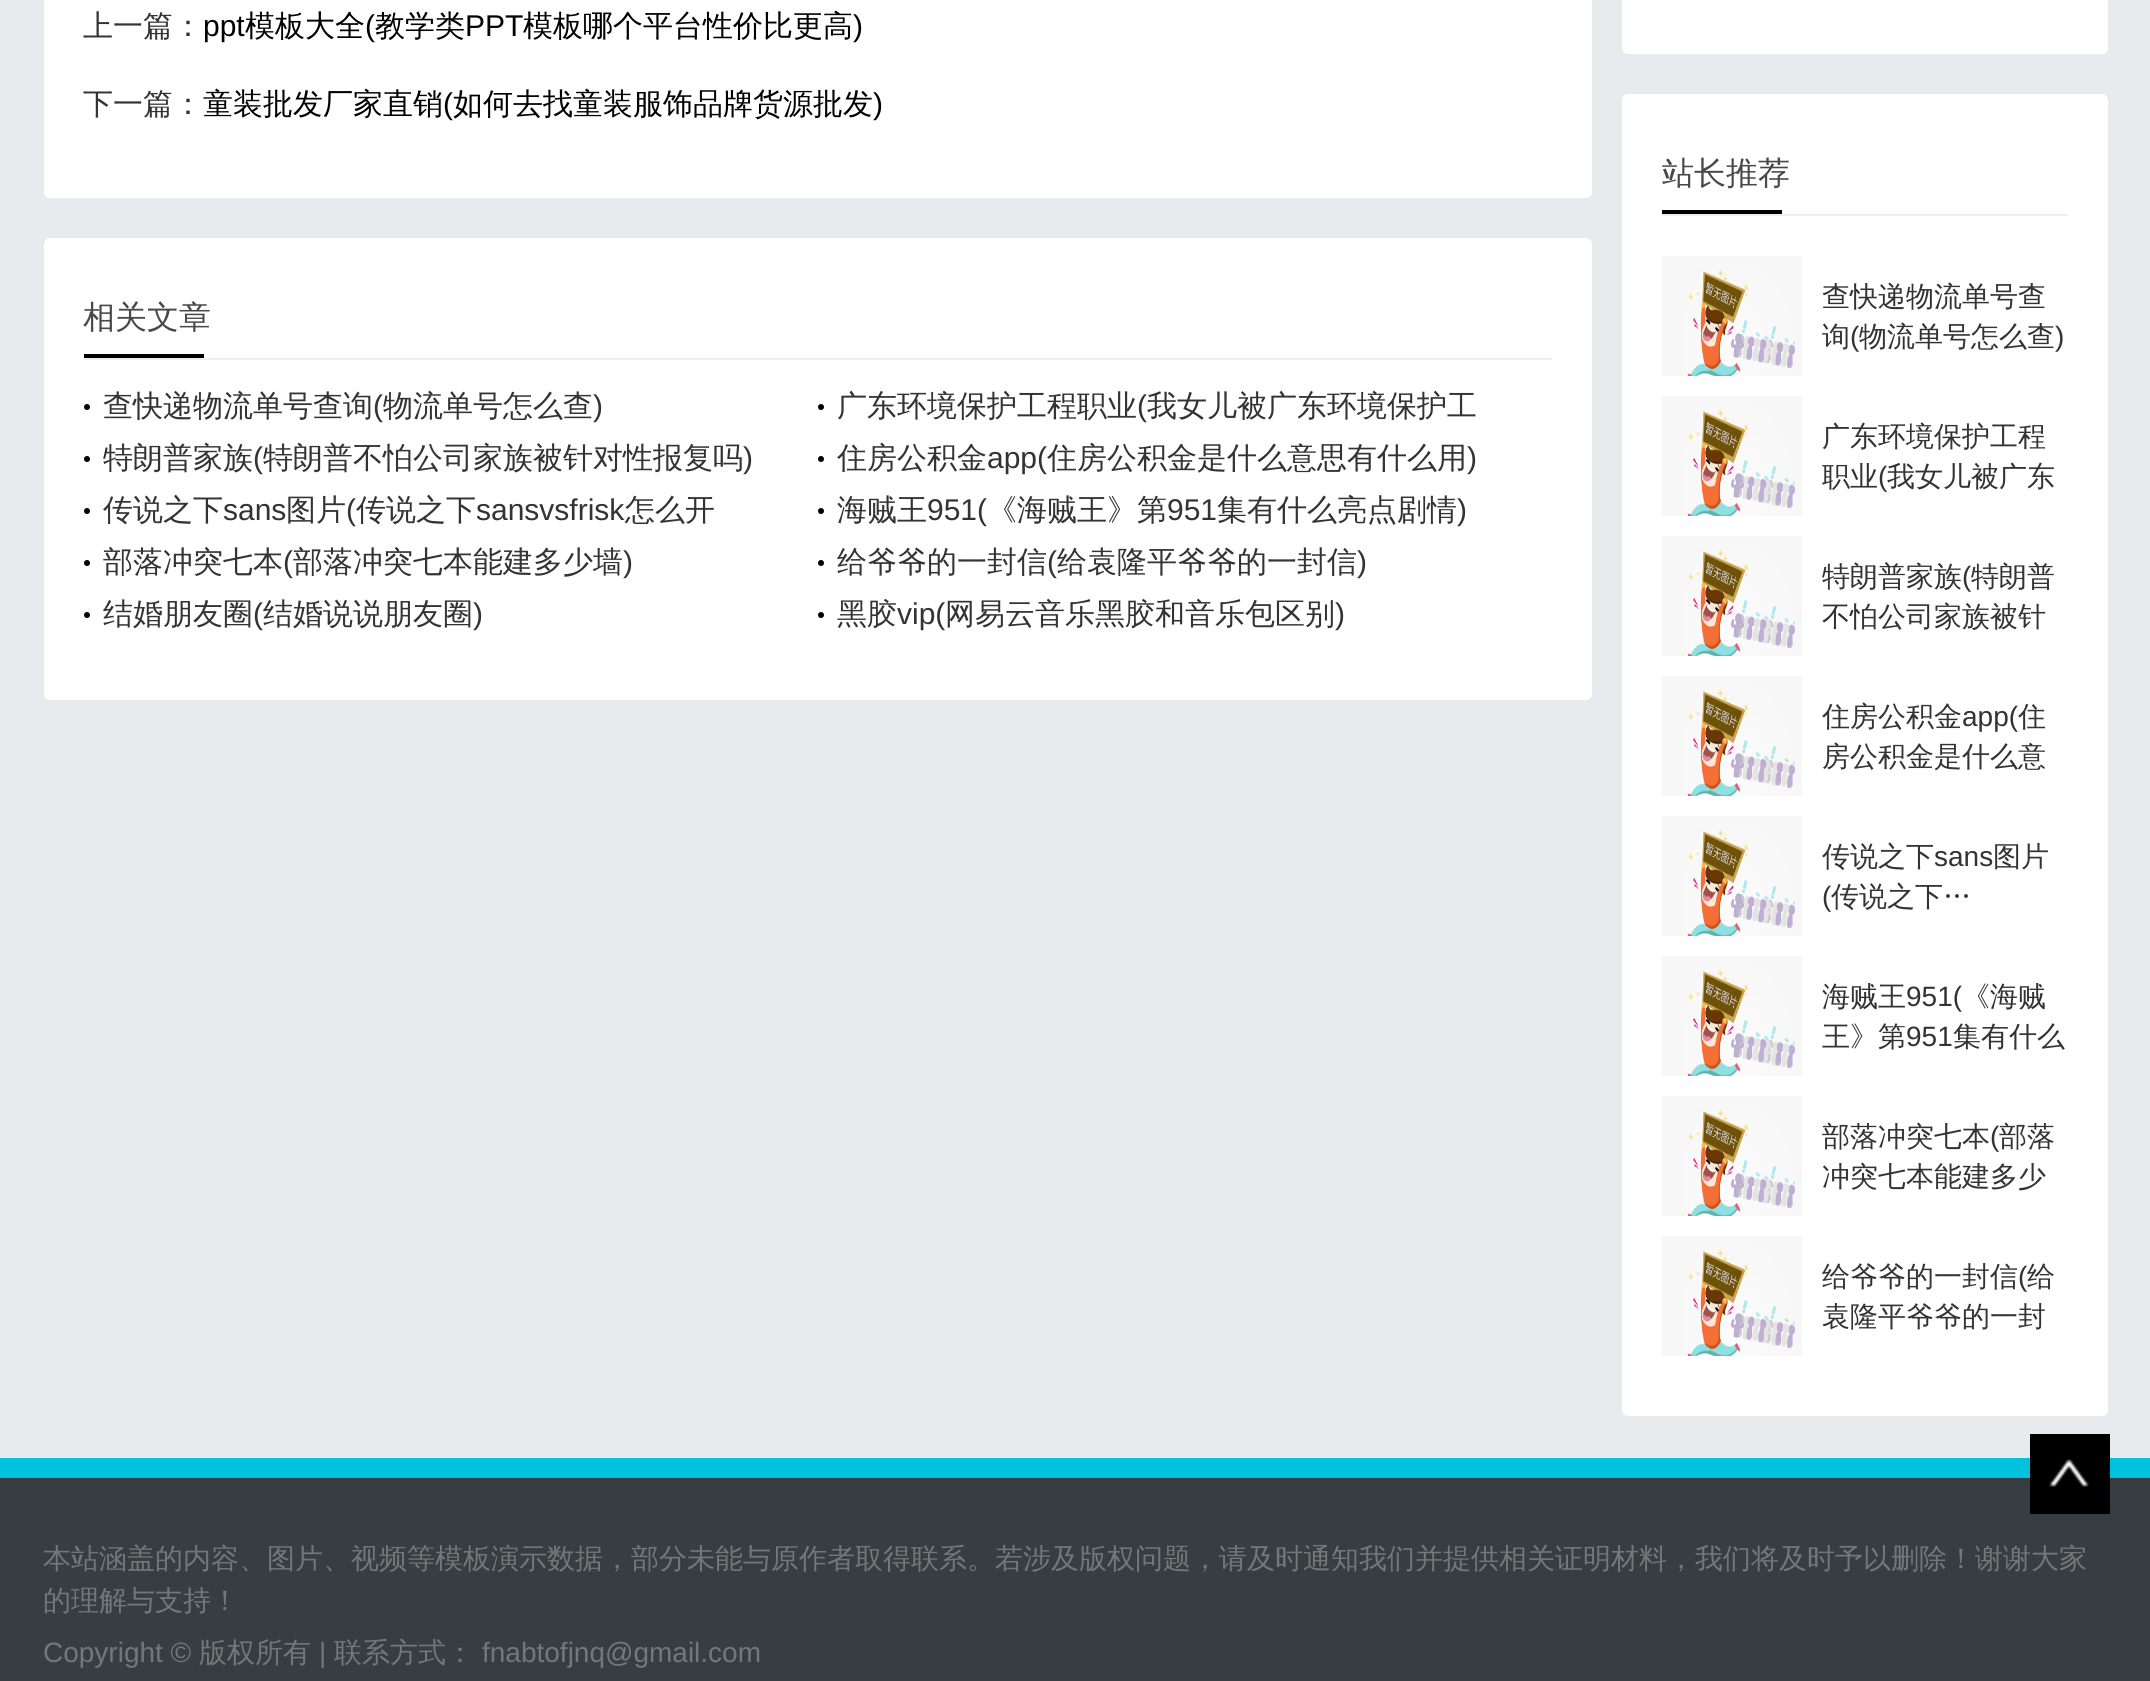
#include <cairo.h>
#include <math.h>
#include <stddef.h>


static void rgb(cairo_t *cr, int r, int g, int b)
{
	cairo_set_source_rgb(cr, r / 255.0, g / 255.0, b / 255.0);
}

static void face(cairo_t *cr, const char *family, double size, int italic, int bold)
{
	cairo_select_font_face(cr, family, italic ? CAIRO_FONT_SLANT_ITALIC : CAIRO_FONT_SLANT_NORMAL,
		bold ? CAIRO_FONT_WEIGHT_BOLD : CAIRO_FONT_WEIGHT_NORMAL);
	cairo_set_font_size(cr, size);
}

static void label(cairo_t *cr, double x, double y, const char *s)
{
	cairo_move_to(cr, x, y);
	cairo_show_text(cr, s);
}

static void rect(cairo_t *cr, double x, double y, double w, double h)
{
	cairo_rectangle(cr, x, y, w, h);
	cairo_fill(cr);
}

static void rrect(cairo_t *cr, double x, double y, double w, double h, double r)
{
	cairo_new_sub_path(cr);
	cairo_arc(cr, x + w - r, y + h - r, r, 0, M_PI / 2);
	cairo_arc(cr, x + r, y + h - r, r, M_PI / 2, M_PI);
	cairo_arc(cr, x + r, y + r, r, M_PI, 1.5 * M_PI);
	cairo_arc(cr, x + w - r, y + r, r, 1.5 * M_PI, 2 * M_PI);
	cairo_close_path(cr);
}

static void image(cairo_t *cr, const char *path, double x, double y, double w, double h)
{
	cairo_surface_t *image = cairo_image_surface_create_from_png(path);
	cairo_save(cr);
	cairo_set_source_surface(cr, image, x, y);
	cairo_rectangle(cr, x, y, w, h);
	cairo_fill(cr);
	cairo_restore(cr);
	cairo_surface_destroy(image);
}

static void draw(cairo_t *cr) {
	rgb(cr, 233, 234, 237);
	cairo_paint(cr);
	rgb(cr, 255, 255, 255);
	rrect(cr, 44, -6, 1548, 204, 6);
	cairo_fill(cr);
	face(cr, "WenQuanYi Zen Hei Medium", 30, 0, 0);
	rgb(cr, 51, 51, 51);
	label(cr, 83, 36, "上一篇：");
	face(cr, "Liberation Sans", 30, 0, 0);
	rgb(cr, 0, 0, 0);
	label(cr, 203, 36, "ppt");
	face(cr, "WenQuanYi Zen Hei Medium", 30, 0, 0);
	label(cr, 245, 36, "模板大全");
	face(cr, "Liberation Sans", 30, 0, 0);
	label(cr, 365, 36, "(");
	face(cr, "WenQuanYi Zen Hei Medium", 30, 0, 0);
	label(cr, 375, 36, "教学类");
	face(cr, "Liberation Sans", 30, 0, 0);
	label(cr, 465, 36, "PPT");
	face(cr, "WenQuanYi Zen Hei Medium", 30, 0, 0);
	label(cr, 523, 36, "模板哪个平台性价比更高");
	face(cr, "Liberation Sans", 30, 0, 0);
	label(cr, 853, 36, ")");
	face(cr, "WenQuanYi Zen Hei Medium", 30, 0, 0);
	rgb(cr, 51, 51, 51);
	label(cr, 83, 114, "下一篇：");
	rgb(cr, 0, 0, 0);
	label(cr, 203, 114, "童装批发厂家直销");
	face(cr, "Liberation Sans", 30, 0, 0);
	label(cr, 443, 114, "(");
	face(cr, "WenQuanYi Zen Hei Medium", 30, 0, 0);
	label(cr, 453, 114, "如何去找童装服饰品牌货源批发");
	face(cr, "Liberation Sans", 30, 0, 0);
	label(cr, 873, 114, ")");
	rgb(cr, 255, 255, 255);
	rrect(cr, 44, 238, 1548, 462, 6);
	cairo_fill(cr);
	rgb(cr, 238, 238, 238);
	rect(cr, 84, 358, 1468, 2);
	face(cr, "WenQuanYi Zen Hei Medium", 32, 0, 0);
	rgb(cr, 72, 72, 72);
	label(cr, 83, 328, "相关文章");
	rgb(cr, 0, 0, 0);
	rect(cr, 84, 354, 120, 4);
	cairo_new_path(cr);
	cairo_arc(cr, 87, 407, 3, 0, 2 * M_PI);
	cairo_fill(cr);
	face(cr, "WenQuanYi Zen Hei Medium", 30, 0, 0);
	rgb(cr, 51, 51, 51);
	label(cr, 103, 416, "查快递物流单号查询");
	face(cr, "Liberation Sans", 30, 0, 0);
	label(cr, 373, 416, "(");
	face(cr, "WenQuanYi Zen Hei Medium", 30, 0, 0);
	label(cr, 383, 416, "物流单号怎么查");
	face(cr, "Liberation Sans", 30, 0, 0);
	label(cr, 593, 416, ")");
	rgb(cr, 0, 0, 0);
	cairo_new_path(cr);
	cairo_arc(cr, 821, 407, 3, 0, 2 * M_PI);
	cairo_fill(cr);
	face(cr, "WenQuanYi Zen Hei Medium", 30, 0, 0);
	rgb(cr, 51, 51, 51);
	label(cr, 837, 416, "广东环境保护工程职业");
	face(cr, "Liberation Sans", 30, 0, 0);
	label(cr, 1137, 416, "(");
	face(cr, "WenQuanYi Zen Hei Medium", 30, 0, 0);
	label(cr, 1147, 416, "我女儿被广东环境保护工");
	rgb(cr, 0, 0, 0);
	cairo_new_path(cr);
	cairo_arc(cr, 87, 459, 3, 0, 2 * M_PI);
	cairo_fill(cr);
	rgb(cr, 51, 51, 51);
	label(cr, 103, 468, "特朗普家族");
	face(cr, "Liberation Sans", 30, 0, 0);
	label(cr, 253, 468, "(");
	face(cr, "WenQuanYi Zen Hei Medium", 30, 0, 0);
	label(cr, 263, 468, "特朗普不怕公司家族被针对性报复吗");
	face(cr, "Liberation Sans", 30, 0, 0);
	label(cr, 743, 468, ")");
	rgb(cr, 0, 0, 0);
	cairo_new_path(cr);
	cairo_arc(cr, 821, 459, 3, 0, 2 * M_PI);
	cairo_fill(cr);
	face(cr, "WenQuanYi Zen Hei Medium", 30, 0, 0);
	rgb(cr, 51, 51, 51);
	label(cr, 837, 468, "住房公积金");
	face(cr, "Liberation Sans", 30, 0, 0);
	label(cr, 987, 468, "app(");
	face(cr, "WenQuanYi Zen Hei Medium", 30, 0, 0);
	label(cr, 1047, 468, "住房公积金是什么意思有什么用");
	face(cr, "Liberation Sans", 30, 0, 0);
	label(cr, 1467, 468, ")");
	rgb(cr, 0, 0, 0);
	cairo_new_path(cr);
	cairo_arc(cr, 87, 511, 3, 0, 2 * M_PI);
	cairo_fill(cr);
	face(cr, "WenQuanYi Zen Hei Medium", 30, 0, 0);
	rgb(cr, 51, 51, 51);
	label(cr, 103, 520, "传说之下");
	face(cr, "Liberation Sans", 30, 0, 0);
	label(cr, 223, 520, "sans");
	face(cr, "WenQuanYi Zen Hei Medium", 30, 0, 0);
	label(cr, 286, 520, "图片");
	face(cr, "Liberation Sans", 30, 0, 0);
	label(cr, 346, 520, "(");
	face(cr, "WenQuanYi Zen Hei Medium", 30, 0, 0);
	label(cr, 356, 520, "传说之下");
	face(cr, "Liberation Sans", 30, 0, 0);
	label(cr, 476, 520, "sansvsfrisk");
	face(cr, "WenQuanYi Zen Hei Medium", 30, 0, 0);
	label(cr, 625, 520, "怎么开");
	rgb(cr, 0, 0, 0);
	cairo_new_path(cr);
	cairo_arc(cr, 821, 511, 3, 0, 2 * M_PI);
	cairo_fill(cr);
	rgb(cr, 51, 51, 51);
	label(cr, 837, 520, "海贼王");
	face(cr, "Liberation Sans", 30, 0, 0);
	label(cr, 927, 520, "951(");
	face(cr, "WenQuanYi Zen Hei Medium", 30, 0, 0);
	label(cr, 987, 520, "《海贼王》第");
	face(cr, "Liberation Sans", 30, 0, 0);
	label(cr, 1167, 520, "951");
	face(cr, "WenQuanYi Zen Hei Medium", 30, 0, 0);
	label(cr, 1217, 520, "集有什么亮点剧情");
	face(cr, "Liberation Sans", 30, 0, 0);
	label(cr, 1457, 520, ")");
	rgb(cr, 0, 0, 0);
	cairo_new_path(cr);
	cairo_arc(cr, 87, 563, 3, 0, 2 * M_PI);
	cairo_fill(cr);
	face(cr, "WenQuanYi Zen Hei Medium", 30, 0, 0);
	rgb(cr, 51, 51, 51);
	label(cr, 103, 572, "部落冲突七本");
	face(cr, "Liberation Sans", 30, 0, 0);
	label(cr, 283, 572, "(");
	face(cr, "WenQuanYi Zen Hei Medium", 30, 0, 0);
	label(cr, 293, 572, "部落冲突七本能建多少墙");
	face(cr, "Liberation Sans", 30, 0, 0);
	label(cr, 623, 572, ")");
	rgb(cr, 0, 0, 0);
	cairo_new_path(cr);
	cairo_arc(cr, 821, 563, 3, 0, 2 * M_PI);
	cairo_fill(cr);
	face(cr, "WenQuanYi Zen Hei Medium", 30, 0, 0);
	rgb(cr, 51, 51, 51);
	label(cr, 837, 572, "给爷爷的一封信");
	face(cr, "Liberation Sans", 30, 0, 0);
	label(cr, 1047, 572, "(");
	face(cr, "WenQuanYi Zen Hei Medium", 30, 0, 0);
	label(cr, 1057, 572, "给袁隆平爷爷的一封信");
	face(cr, "Liberation Sans", 30, 0, 0);
	label(cr, 1357, 572, ")");
	rgb(cr, 0, 0, 0);
	cairo_new_path(cr);
	cairo_arc(cr, 87, 615, 3, 0, 2 * M_PI);
	cairo_fill(cr);
	face(cr, "WenQuanYi Zen Hei Medium", 30, 0, 0);
	rgb(cr, 51, 51, 51);
	label(cr, 103, 624, "结婚朋友圈");
	face(cr, "Liberation Sans", 30, 0, 0);
	label(cr, 253, 624, "(");
	face(cr, "WenQuanYi Zen Hei Medium", 30, 0, 0);
	label(cr, 263, 624, "结婚说说朋友圈");
	face(cr, "Liberation Sans", 30, 0, 0);
	label(cr, 473, 624, ")");
	rgb(cr, 0, 0, 0);
	cairo_new_path(cr);
	cairo_arc(cr, 821, 615, 3, 0, 2 * M_PI);
	cairo_fill(cr);
	face(cr, "WenQuanYi Zen Hei Medium", 30, 0, 0);
	rgb(cr, 51, 51, 51);
	label(cr, 837, 624, "黑胶");
	face(cr, "Liberation Sans", 30, 0, 0);
	label(cr, 897, 624, "vip(");
	face(cr, "WenQuanYi Zen Hei Medium", 30, 0, 0);
	label(cr, 945, 624, "网易云音乐黑胶和音乐包区别");
	face(cr, "Liberation Sans", 30, 0, 0);
	label(cr, 1335, 624, ")");
	rgb(cr, 255, 255, 255);
	rrect(cr, 1622, -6, 486, 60, 6);
	cairo_fill(cr);
	rrect(cr, 1622, 94, 486, 1322, 6);
	cairo_fill(cr);
	rgb(cr, 238, 238, 238);
	rect(cr, 1662, 214, 406, 2);
	face(cr, "WenQuanYi Zen Hei Medium", 32, 0, 0);
	rgb(cr, 72, 72, 72);
	label(cr, 1662, 184, "站长推荐");
	rgb(cr, 0, 0, 0);
	rect(cr, 1662, 210, 120, 4);
	image(cr, "image0.png", 1662, 256, 140, 120);
	face(cr, "WenQuanYi Zen Hei Medium", 28, 0, 0);
	rgb(cr, 51, 51, 51);
	label(cr, 1822, 306, "查快递物流单号查");
	label(cr, 1822, 346, "询");
	face(cr, "Liberation Sans", 28, 0, 0);
	label(cr, 1850, 346, "(");
	face(cr, "WenQuanYi Zen Hei Medium", 28, 0, 0);
	label(cr, 1859, 346, "物流单号怎么查");
	face(cr, "Liberation Sans", 28, 0, 0);
	label(cr, 2055, 346, ")");
	image(cr, "image1.png", 1662, 396, 140, 120);
	face(cr, "WenQuanYi Zen Hei Medium", 28, 0, 0);
	label(cr, 1822, 446, "广东环境保护工程");
	label(cr, 1822, 486, "职业");
	face(cr, "Liberation Sans", 28, 0, 0);
	label(cr, 1878, 486, "(");
	face(cr, "WenQuanYi Zen Hei Medium", 28, 0, 0);
	label(cr, 1887, 486, "我女儿被广东");
	image(cr, "image2.png", 1662, 536, 140, 120);
	label(cr, 1822, 586, "特朗普家族");
	face(cr, "Liberation Sans", 28, 0, 0);
	label(cr, 1962, 586, "(");
	face(cr, "WenQuanYi Zen Hei Medium", 28, 0, 0);
	label(cr, 1971, 586, "特朗普");
	label(cr, 1822, 626, "不怕公司家族被针");
	image(cr, "image3.png", 1662, 676, 140, 120);
	label(cr, 1822, 726, "住房公积金");
	face(cr, "Liberation Sans", 28, 0, 0);
	label(cr, 1962, 726, "app(");
	face(cr, "WenQuanYi Zen Hei Medium", 28, 0, 0);
	label(cr, 2018, 726, "住");
	label(cr, 1822, 766, "房公积金是什么意");
	image(cr, "image4.png", 1662, 816, 140, 120);
	label(cr, 1822, 866, "传说之下");
	face(cr, "Liberation Sans", 28, 0, 0);
	label(cr, 1934, 866, "sans");
	face(cr, "WenQuanYi Zen Hei Medium", 28, 0, 0);
	label(cr, 1993, 866, "图片");
	face(cr, "Liberation Sans", 28, 0, 0);
	label(cr, 1822, 906, "(");
	face(cr, "WenQuanYi Zen Hei Medium", 28, 0, 0);
	label(cr, 1831, 906, "传说之下…");
	image(cr, "image5.png", 1662, 956, 140, 120);
	label(cr, 1822, 1006, "海贼王");
	face(cr, "Liberation Sans", 28, 0, 0);
	label(cr, 1906, 1006, "951(");
	face(cr, "WenQuanYi Zen Hei Medium", 28, 0, 0);
	label(cr, 1962, 1006, "《海贼");
	label(cr, 1822, 1046, "王》第");
	face(cr, "Liberation Sans", 28, 0, 0);
	label(cr, 1906, 1046, "951");
	face(cr, "WenQuanYi Zen Hei Medium", 28, 0, 0);
	label(cr, 1953, 1046, "集有什么");
	image(cr, "image6.png", 1662, 1096, 140, 120);
	label(cr, 1822, 1146, "部落冲突七本");
	face(cr, "Liberation Sans", 28, 0, 0);
	label(cr, 1990, 1146, "(");
	face(cr, "WenQuanYi Zen Hei Medium", 28, 0, 0);
	label(cr, 1999, 1146, "部落");
	label(cr, 1822, 1186, "冲突七本能建多少");
	image(cr, "image7.png", 1662, 1236, 140, 120);
	label(cr, 1822, 1286, "给爷爷的一封信");
	face(cr, "Liberation Sans", 28, 0, 0);
	label(cr, 2018, 1286, "(");
	face(cr, "WenQuanYi Zen Hei Medium", 28, 0, 0);
	label(cr, 2027, 1286, "给");
	label(cr, 1822, 1326, "袁隆平爷爷的一封");
	rgb(cr, 55, 61, 65);
	rect(cr, 0, 1478, 2150, 203);
	rgb(cr, 0, 193, 222);
	rect(cr, 0, 1458, 2150, 20);
	rgb(cr, 0, 0, 0);
	rect(cr, 2030, 1434, 80, 80);
	image(cr, "image8.png", 2049, 1459, 40, 28);
	rgb(cr, 115, 119, 122);
	label(cr, 43, 1568, "本站涵盖的内容、图片、视频等模板演示数据，部分未能与原作者取得联系。若涉及版权问题，请及时通知我们并提供相关证明材料，我们将及时予以删除！谢谢大家");
	label(cr, 43, 1610, "的理解与支持！");
	face(cr, "Liberation Sans", 28, 0, 0);
	label(cr, 43, 1662, "Copyright ©");
	face(cr, "WenQuanYi Zen Hei Medium", 28, 0, 0);
	label(cr, 199, 1662, "版权所有");
	face(cr, "Liberation Sans", 28, 0, 0);
	label(cr, 319, 1662, "|");
	face(cr, "WenQuanYi Zen Hei Medium", 28, 0, 0);
	label(cr, 334, 1662, "联系方式：");
	face(cr, "Liberation Sans", 28, 0, 0);
	label(cr, 482, 1662, "fnabtofjnq@gmail.com");
}

int main(void) {
	cairo_surface_t *surface = cairo_image_surface_create(CAIRO_FORMAT_RGB24, 2150, 1681);
	cairo_t *cr = cairo_create(surface);
	cairo_font_options_t *options = cairo_font_options_create();
	cairo_font_options_set_hint_metrics(options, CAIRO_HINT_METRICS_OFF);
	cairo_font_options_set_hint_style(options, CAIRO_HINT_STYLE_NONE);
	cairo_set_font_options(cr, options);
	cairo_set_miter_limit(cr, 4);
	draw(cr);
	cairo_surface_write_to_png(surface, "render.png");
	cairo_font_options_destroy(options);
	cairo_destroy(cr);
	cairo_surface_destroy(surface);
	return 0;
}
